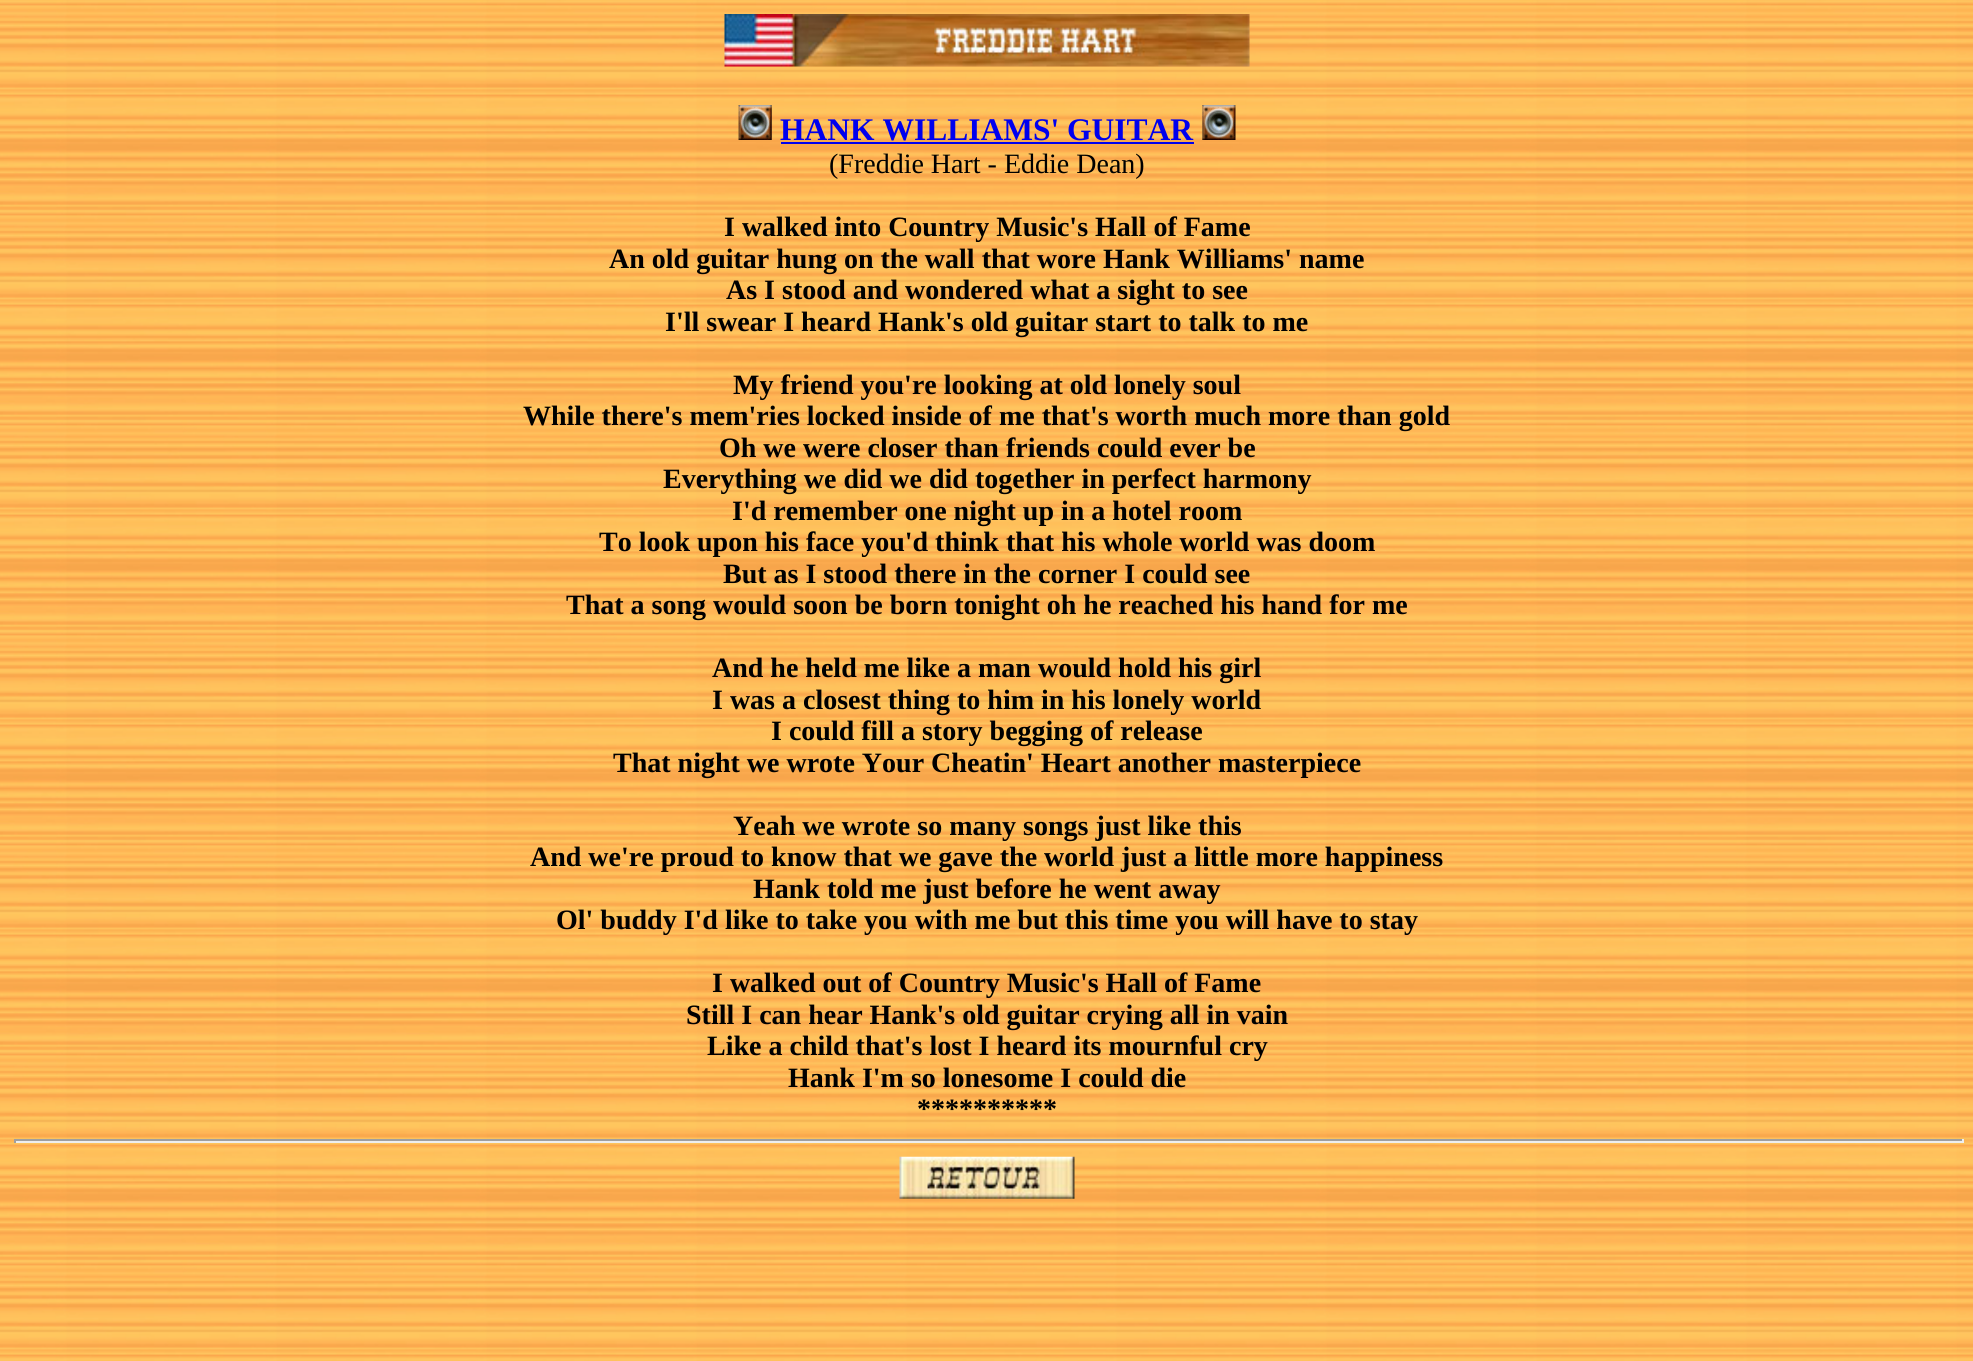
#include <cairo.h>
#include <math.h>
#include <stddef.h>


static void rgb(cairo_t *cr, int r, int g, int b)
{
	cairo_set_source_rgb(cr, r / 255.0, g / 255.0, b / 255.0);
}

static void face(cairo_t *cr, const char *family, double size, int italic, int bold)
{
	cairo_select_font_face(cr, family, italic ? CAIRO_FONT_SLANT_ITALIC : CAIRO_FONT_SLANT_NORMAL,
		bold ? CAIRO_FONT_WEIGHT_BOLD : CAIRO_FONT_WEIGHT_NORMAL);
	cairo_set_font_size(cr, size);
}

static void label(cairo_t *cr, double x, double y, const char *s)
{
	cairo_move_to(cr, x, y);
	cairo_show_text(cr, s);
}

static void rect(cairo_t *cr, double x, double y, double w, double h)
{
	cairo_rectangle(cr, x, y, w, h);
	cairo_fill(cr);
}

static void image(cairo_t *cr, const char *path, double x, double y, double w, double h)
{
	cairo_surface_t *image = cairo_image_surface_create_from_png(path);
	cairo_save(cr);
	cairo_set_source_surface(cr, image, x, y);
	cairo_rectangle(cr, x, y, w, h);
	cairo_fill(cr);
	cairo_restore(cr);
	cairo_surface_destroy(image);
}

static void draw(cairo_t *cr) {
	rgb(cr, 255, 255, 255);
	cairo_paint(cr);
	image(cr, "image0.png", 0, 0, 1973, 1361);
	image(cr, "image1.png", 724, 14, 526, 53);
	image(cr, "image2.png", 738, 105, 34, 35);
	face(cr, "Liberation Serif", 31.5, 0, 1);
	rgb(cr, 0, 0, 238);
	label(cr, 780, 140, "HANK WILLIAMS' GUITAR");
	rect(cr, 781, 142, 413, 2);
	image(cr, "image3.png", 1202, 105, 34, 35);
	face(cr, "Liberation Serif", 28, 0, 0);
	rgb(cr, 0, 0, 0);
	label(cr, 829, 173, "(Freddie Hart - Eddie Dean)");
	face(cr, "Liberation Serif", 28, 0, 1);
	label(cr, 724, 236, "I walked into Country Music's Hall of Fame");
	label(cr, 609, 268, "An old guitar hung on the wall that wore Hank Williams' name");
	label(cr, 726, 299, "As I stood and wondered what a sight to see");
	label(cr, 665, 331, "I'll swear I heard Hank's old guitar start to talk to me");
	label(cr, 733, 394, "My friend you're looking at old lonely soul");
	label(cr, 523, 425, "While there's mem'ries locked inside of me that's worth much more than gold");
	label(cr, 719, 457, "Oh we were closer than friends could ever be");
	label(cr, 663, 488, "Everything we did we did together in perfect harmony");
	label(cr, 732, 520, "I'd remember one night up in a hotel room");
	label(cr, 599, 551, "To look upon his face you'd think that his whole world was doom");
	label(cr, 723, 583, "But as I stood there in the corner I could see");
	label(cr, 566, 614, "That a song would soon be born tonight oh he reached his hand for me");
	label(cr, 712, 677, "And he held me like a man would hold his girl");
	label(cr, 712, 709, "I was a closest thing to him in his lonely world");
	label(cr, 771, 740, "I could fill a story begging of release");
	label(cr, 613, 772, "That night we wrote Your Cheatin' Heart another masterpiece");
	label(cr, 733, 835, "Yeah we wrote so many songs just like this");
	label(cr, 530, 866, "And we're proud to know that we gave the world just a little more happiness");
	label(cr, 753, 898, "Hank told me just before he went away");
	label(cr, 556, 929, "Ol' buddy I'd like to take you with me but this time you will have to stay");
	label(cr, 712, 992, "I walked out of Country Music's Hall of Fame");
	label(cr, 686, 1024, "Still I can hear Hank's old guitar crying all in vain");
	label(cr, 707, 1055, "Like a child that's lost I heard its mournful cry");
	label(cr, 788, 1087, "Hank I'm so lonesome I could die");
	label(cr, 917, 1118, "**********");
	rgb(cr, 159, 159, 159);
	rect(cr, 14, 1139, 1950, 2);
	rgb(cr, 238, 238, 238);
	rect(cr, 1962, 1139, 2, 4);
	rect(cr, 14, 1141, 1950, 2);
	rgb(cr, 159, 159, 159);
	rect(cr, 14, 1139, 2, 4);
	image(cr, "image4.png", 899, 1156, 176, 43);
}

int main(void) {
	cairo_surface_t *surface = cairo_image_surface_create(CAIRO_FORMAT_RGB24, 1973, 1361);
	cairo_t *cr = cairo_create(surface);
	cairo_font_options_t *options = cairo_font_options_create();
	cairo_font_options_set_hint_metrics(options, CAIRO_HINT_METRICS_OFF);
	cairo_font_options_set_hint_style(options, CAIRO_HINT_STYLE_NONE);
	cairo_set_font_options(cr, options);
	cairo_set_miter_limit(cr, 4);
	draw(cr);
	cairo_surface_write_to_png(surface, "render.png");
	cairo_font_options_destroy(options);
	cairo_destroy(cr);
	cairo_surface_destroy(surface);
	return 0;
}
